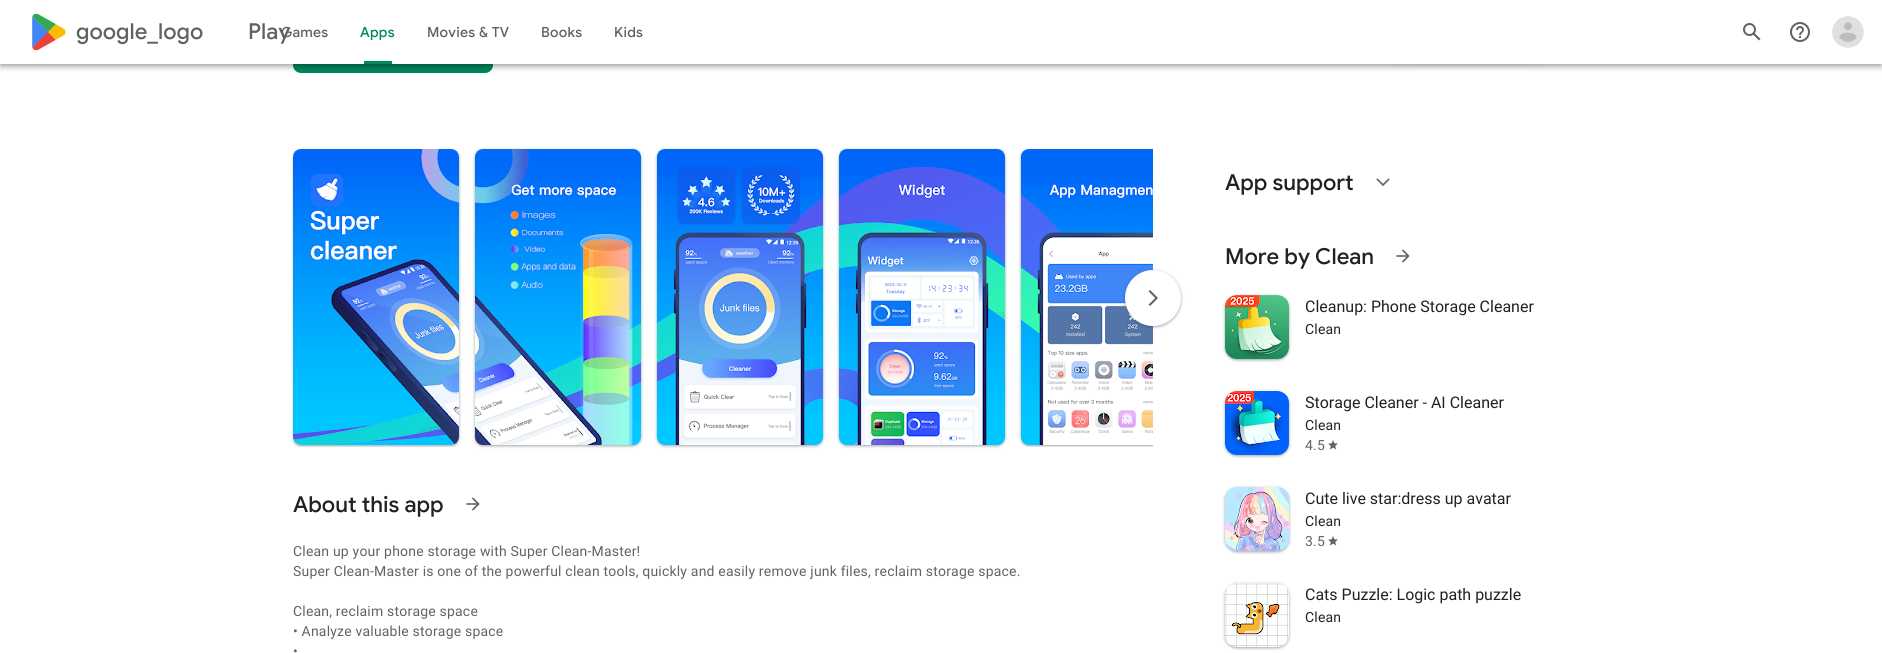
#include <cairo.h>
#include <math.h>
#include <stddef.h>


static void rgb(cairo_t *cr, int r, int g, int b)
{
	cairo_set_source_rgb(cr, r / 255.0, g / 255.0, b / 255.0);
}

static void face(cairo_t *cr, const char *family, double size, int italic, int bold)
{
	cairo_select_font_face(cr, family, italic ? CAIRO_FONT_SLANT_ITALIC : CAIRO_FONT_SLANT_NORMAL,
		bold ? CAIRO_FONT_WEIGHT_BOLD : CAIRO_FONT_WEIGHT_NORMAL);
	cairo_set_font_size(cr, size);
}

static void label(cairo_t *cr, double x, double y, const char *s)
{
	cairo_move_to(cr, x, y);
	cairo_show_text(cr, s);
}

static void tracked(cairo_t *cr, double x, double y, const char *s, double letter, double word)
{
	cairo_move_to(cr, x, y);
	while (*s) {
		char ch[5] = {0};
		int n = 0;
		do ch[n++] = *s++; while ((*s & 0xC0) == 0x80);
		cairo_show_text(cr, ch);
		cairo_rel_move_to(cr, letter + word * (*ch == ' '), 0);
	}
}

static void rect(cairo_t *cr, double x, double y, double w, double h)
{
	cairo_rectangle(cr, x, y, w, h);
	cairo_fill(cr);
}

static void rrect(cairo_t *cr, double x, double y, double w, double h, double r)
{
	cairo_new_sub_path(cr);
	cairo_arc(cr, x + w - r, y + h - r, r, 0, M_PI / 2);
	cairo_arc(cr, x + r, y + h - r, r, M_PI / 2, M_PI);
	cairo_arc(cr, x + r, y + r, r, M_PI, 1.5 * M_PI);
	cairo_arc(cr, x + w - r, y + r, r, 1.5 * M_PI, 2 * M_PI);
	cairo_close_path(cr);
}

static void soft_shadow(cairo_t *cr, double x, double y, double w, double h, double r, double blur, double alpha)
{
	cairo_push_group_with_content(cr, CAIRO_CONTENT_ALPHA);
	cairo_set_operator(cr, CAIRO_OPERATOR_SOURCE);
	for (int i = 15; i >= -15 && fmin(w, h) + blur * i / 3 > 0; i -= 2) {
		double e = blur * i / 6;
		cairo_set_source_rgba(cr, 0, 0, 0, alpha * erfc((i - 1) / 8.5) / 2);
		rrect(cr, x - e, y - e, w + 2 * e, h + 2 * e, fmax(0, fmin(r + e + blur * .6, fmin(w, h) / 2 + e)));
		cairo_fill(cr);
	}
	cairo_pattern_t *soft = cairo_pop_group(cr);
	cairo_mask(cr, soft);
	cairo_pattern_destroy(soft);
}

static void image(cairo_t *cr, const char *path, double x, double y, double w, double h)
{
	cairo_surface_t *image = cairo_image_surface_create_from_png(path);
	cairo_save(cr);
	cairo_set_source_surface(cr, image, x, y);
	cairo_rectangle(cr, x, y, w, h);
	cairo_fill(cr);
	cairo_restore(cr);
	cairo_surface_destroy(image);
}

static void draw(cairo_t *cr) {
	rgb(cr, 255, 255, 255);
	cairo_paint(cr);
	rgb(cr, 1, 135, 95);
	rrect(cr, 293, 29, 200, 44, 8);
	cairo_fill(cr);
	image(cr, "image4.png", 1389, 64, 160, 5);
	rgb(cr, 0, 0, 0);
	soft_shadow(cr, 1, 3, 1880, 62, 0, 2, 0.2);
	soft_shadow(cr, 0, 1, 1882, 64, 0, 5, 0.12);
	soft_shadow(cr, 0, 4, 1882, 64, 0, 2.5, 0.14);
	rgb(cr, 255, 255, 255);
	rect(cr, 0, 0, 1882, 64);
	image(cr, "image0.png", 32, 13, 34, 38);
	face(cr, "Google Sans Medium", 22, 0, 0);
	rgb(cr, 95, 99, 104);
	tracked(cr, 76, 39, "google_logo", 0, 55);
	tracked(cr, 248, 39, "Play", 0, 55);
	face(cr, "Google Sans Medium", 14, 0, 0);
	tracked(cr, 281, 37, "Games", 0.25, 0);
	rgb(cr, 1, 135, 95);
	tracked(cr, 360, 37, "Apps", 0.25, 0);
	rect(cr, 364, 61, 28, 3);
	rgb(cr, 95, 99, 104);
	tracked(cr, 427, 37, "Movies & TV", 0.25, 0);
	tracked(cr, 541, 37, "Books", 0.25, 0);
	tracked(cr, 614, 37, "Kids", 0.25, 0);
	image(cr, "image1.png", 1743, 23, 18, 18);
	image(cr, "image2.png", 1790, 22, 20, 20);
	image(cr, "image3.png", 1832, 16, 32, 32);
	cairo_save(cr);
	cairo_rectangle(cr, 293, 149, 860, 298);
	cairo_clip(cr);
	rgb(cr, 60, 64, 67);
	soft_shadow(cr, 292, 149, 168, 298, 9, 1.5, 0.15);
	cairo_restore(cr);
	cairo_save(cr);
	cairo_set_fill_rule(cr, CAIRO_FILL_RULE_EVEN_ODD);
	cairo_new_path(cr);
	cairo_move_to(cr, 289, 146);
	cairo_line_to(cr, 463, 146);
	cairo_line_to(cr, 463, 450);
	cairo_line_to(cr, 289, 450);
	cairo_close_path(cr);
	cairo_move_to(cr, 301, 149);
	cairo_line_to(cr, 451, 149);
	cairo_curve_to(cr, 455.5, 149, 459, 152.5, 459, 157);
	cairo_line_to(cr, 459, 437);
	cairo_curve_to(cr, 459, 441.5, 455.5, 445, 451, 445);
	cairo_line_to(cr, 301, 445);
	cairo_curve_to(cr, 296.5, 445, 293, 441.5, 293, 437);
	cairo_line_to(cr, 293, 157);
	cairo_curve_to(cr, 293, 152.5, 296.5, 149, 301, 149);
	cairo_close_path(cr);
	cairo_clip(cr);
	rgb(cr, 60, 64, 67);
	soft_shadow(cr, 293, 150, 166, 296, 8, 1, 0.3);
	cairo_restore(cr);
	image(cr, "image5.png", 293, 149, 166, 296);
	cairo_save(cr);
	cairo_set_fill_rule(cr, CAIRO_FILL_RULE_EVEN_ODD);
	cairo_new_path(cr);
	cairo_move_to(cr, 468, 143);
	cairo_line_to(cr, 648, 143);
	cairo_line_to(cr, 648, 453);
	cairo_line_to(cr, 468, 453);
	cairo_close_path(cr);
	cairo_move_to(cr, 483, 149);
	cairo_line_to(cr, 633, 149);
	cairo_curve_to(cr, 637.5, 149, 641, 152.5, 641, 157);
	cairo_line_to(cr, 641, 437);
	cairo_curve_to(cr, 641, 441.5, 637.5, 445, 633, 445);
	cairo_line_to(cr, 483, 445);
	cairo_curve_to(cr, 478.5, 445, 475, 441.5, 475, 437);
	cairo_line_to(cr, 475, 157);
	cairo_curve_to(cr, 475, 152.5, 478.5, 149, 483, 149);
	cairo_close_path(cr);
	cairo_clip(cr);
	rgb(cr, 60, 64, 67);
	soft_shadow(cr, 474, 149, 168, 298, 9, 1.5, 0.15);
	cairo_restore(cr);
	rgb(cr, 60, 64, 67);
	soft_shadow(cr, 475, 150, 166, 296, 8, 1, 0.3);
	image(cr, "image6.png", 475, 149, 166, 296);
	cairo_save(cr);
	cairo_set_fill_rule(cr, CAIRO_FILL_RULE_EVEN_ODD);
	cairo_new_path(cr);
	cairo_move_to(cr, 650, 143);
	cairo_line_to(cr, 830, 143);
	cairo_line_to(cr, 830, 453);
	cairo_line_to(cr, 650, 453);
	cairo_close_path(cr);
	cairo_move_to(cr, 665, 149);
	cairo_line_to(cr, 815, 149);
	cairo_curve_to(cr, 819.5, 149, 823, 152.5, 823, 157);
	cairo_line_to(cr, 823, 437);
	cairo_curve_to(cr, 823, 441.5, 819.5, 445, 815, 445);
	cairo_line_to(cr, 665, 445);
	cairo_curve_to(cr, 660.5, 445, 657, 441.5, 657, 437);
	cairo_line_to(cr, 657, 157);
	cairo_curve_to(cr, 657, 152.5, 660.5, 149, 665, 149);
	cairo_close_path(cr);
	cairo_clip(cr);
	soft_shadow(cr, 656, 149, 168, 298, 9, 1.5, 0.15);
	cairo_restore(cr);
	soft_shadow(cr, 657, 150, 166, 296, 8, 1, 0.3);
	image(cr, "image7.png", 657, 149, 166, 296);
	cairo_save(cr);
	cairo_set_fill_rule(cr, CAIRO_FILL_RULE_EVEN_ODD);
	cairo_new_path(cr);
	cairo_move_to(cr, 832, 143);
	cairo_line_to(cr, 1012, 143);
	cairo_line_to(cr, 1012, 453);
	cairo_line_to(cr, 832, 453);
	cairo_close_path(cr);
	cairo_move_to(cr, 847, 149);
	cairo_line_to(cr, 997, 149);
	cairo_curve_to(cr, 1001.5, 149, 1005, 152.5, 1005, 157);
	cairo_line_to(cr, 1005, 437);
	cairo_curve_to(cr, 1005, 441.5, 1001.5, 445, 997, 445);
	cairo_line_to(cr, 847, 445);
	cairo_curve_to(cr, 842.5, 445, 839, 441.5, 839, 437);
	cairo_line_to(cr, 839, 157);
	cairo_curve_to(cr, 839, 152.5, 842.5, 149, 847, 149);
	cairo_close_path(cr);
	cairo_clip(cr);
	soft_shadow(cr, 838, 149, 168, 298, 9, 1.5, 0.15);
	cairo_restore(cr);
	soft_shadow(cr, 839, 150, 166, 296, 8, 1, 0.3);
	image(cr, "image8.png", 839, 149, 166, 296);
	cairo_save(cr);
	cairo_rectangle(cr, 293, 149, 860, 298);
	cairo_clip(cr);
	soft_shadow(cr, 1020, 149, 168, 298, 9, 1.5, 0.15);
	soft_shadow(cr, 1021, 150, 166, 296, 8, 1, 0.3);
	cairo_restore(cr);
	image(cr, "image9.png", 1021, 149, 132, 296);
	soft_shadow(cr, 1124, 270, 58, 58, 29, 1.5, 0.15);
	soft_shadow(cr, 1125, 271, 56, 56, 28, 1, 0.3);
	rgb(cr, 255, 255, 255);
	cairo_arc(cr, 1153, 298, 28, 0, 2 * M_PI);
	cairo_fill(cr);
	image(cr, "image10.png", 1148, 290, 10, 16);
	face(cr, "Google Sans Medium", 22, 0, 0);
	rgb(cr, 32, 33, 36);
	label(cr, 293, 512, "About this app");
	image(cr, "image11.png", 466, 497, 14, 14);
	face(cr, "Roboto", 14, 0, 0);
	rgb(cr, 95, 99, 104);
	tracked(cr, 293, 556, "Clean up your phone storage with Super Clean-Master!", 0.2, 0);
	tracked(cr, 293, 576, "Super Clean-Master is one of the powerful clean tools, quickly and easily remove junk files, reclaim storage space.", 0.2, 0);
	tracked(cr, 293, 616, "Clean, reclaim storage space", 0.2, 0);
	tracked(cr, 293, 636, "• Analyze valuable storage space", 0.2, 0);
	tracked(cr, 293, 656, "•", 0.2, 0);
	face(cr, "Google Sans Medium", 22, 0, 0);
	rgb(cr, 32, 33, 36);
	label(cr, 1225, 190, "App support");
	image(cr, "image12.png", 1376, 178, 14, 8);
	label(cr, 1225, 264, "More by Clean");
	image(cr, "image11.png", 1396, 249, 14, 14);
	rgb(cr, 60, 64, 67);
	soft_shadow(cr, 1224, 295, 66, 66, 13, 1.5, 0.15);
	soft_shadow(cr, 1225, 296, 64, 64, 12, 1, 0.3);
	image(cr, "image13.png", 1225, 295, 64, 64);
	face(cr, "Roboto", 16, 0, 0);
	rgb(cr, 32, 33, 36);
	label(cr, 1305, 312, "Cleanup: Phone Storage Cleaner");
	face(cr, "Roboto", 14, 0, 0);
	tracked(cr, 1305, 334, "Clean", 0.2, 0);
	rgb(cr, 60, 64, 67);
	soft_shadow(cr, 1224, 391, 66, 66, 13, 1.5, 0.15);
	soft_shadow(cr, 1225, 392, 64, 64, 12, 1, 0.3);
	image(cr, "image14.png", 1225, 391, 64, 64);
	face(cr, "Roboto", 16, 0, 0);
	rgb(cr, 32, 33, 36);
	label(cr, 1305, 408, "Storage Cleaner - AI Cleaner");
	face(cr, "Roboto", 14, 0, 0);
	tracked(cr, 1305, 430, "Clean", 0.2, 0);
	rgb(cr, 95, 99, 104);
	tracked(cr, 1305, 450, "4.5", 0.2, 0);
	image(cr, "image15.png", 1328, 440, 10, 10);
	rgb(cr, 60, 64, 67);
	soft_shadow(cr, 1224, 487, 66, 66, 13, 1.5, 0.15);
	soft_shadow(cr, 1225, 488, 64, 64, 12, 1, 0.3);
	image(cr, "image16.png", 1225, 487, 64, 64);
	face(cr, "Roboto", 16, 0, 0);
	rgb(cr, 32, 33, 36);
	label(cr, 1305, 504, "Cute live star:dress up avatar");
	face(cr, "Roboto", 14, 0, 0);
	tracked(cr, 1305, 526, "Clean", 0.2, 0);
	rgb(cr, 95, 99, 104);
	tracked(cr, 1305, 546, "3.5", 0.2, 0);
	image(cr, "image15.png", 1328, 536, 10, 10);
	rgb(cr, 60, 64, 67);
	soft_shadow(cr, 1224, 583, 66, 66, 13, 1.5, 0.15);
	soft_shadow(cr, 1225, 584, 64, 64, 12, 1, 0.3);
	image(cr, "image17.png", 1225, 583, 64, 64);
	face(cr, "Roboto", 16, 0, 0);
	rgb(cr, 32, 33, 36);
	label(cr, 1305, 600, "Cats Puzzle: Logic path puzzle");
	face(cr, "Roboto", 14, 0, 0);
	tracked(cr, 1305, 622, "Clean", 0.2, 0);
}

int main(void) {
	cairo_surface_t *surface = cairo_image_surface_create(CAIRO_FORMAT_RGB24, 1882, 653);
	cairo_t *cr = cairo_create(surface);
	cairo_font_options_t *options = cairo_font_options_create();
	cairo_font_options_set_hint_metrics(options, CAIRO_HINT_METRICS_OFF);
	cairo_font_options_set_hint_style(options, CAIRO_HINT_STYLE_NONE);
	cairo_set_font_options(cr, options);
	cairo_set_miter_limit(cr, 4);
	draw(cr);
	cairo_surface_write_to_png(surface, "render.png");
	cairo_font_options_destroy(options);
	cairo_destroy(cr);
	cairo_surface_destroy(surface);
	return 0;
}
